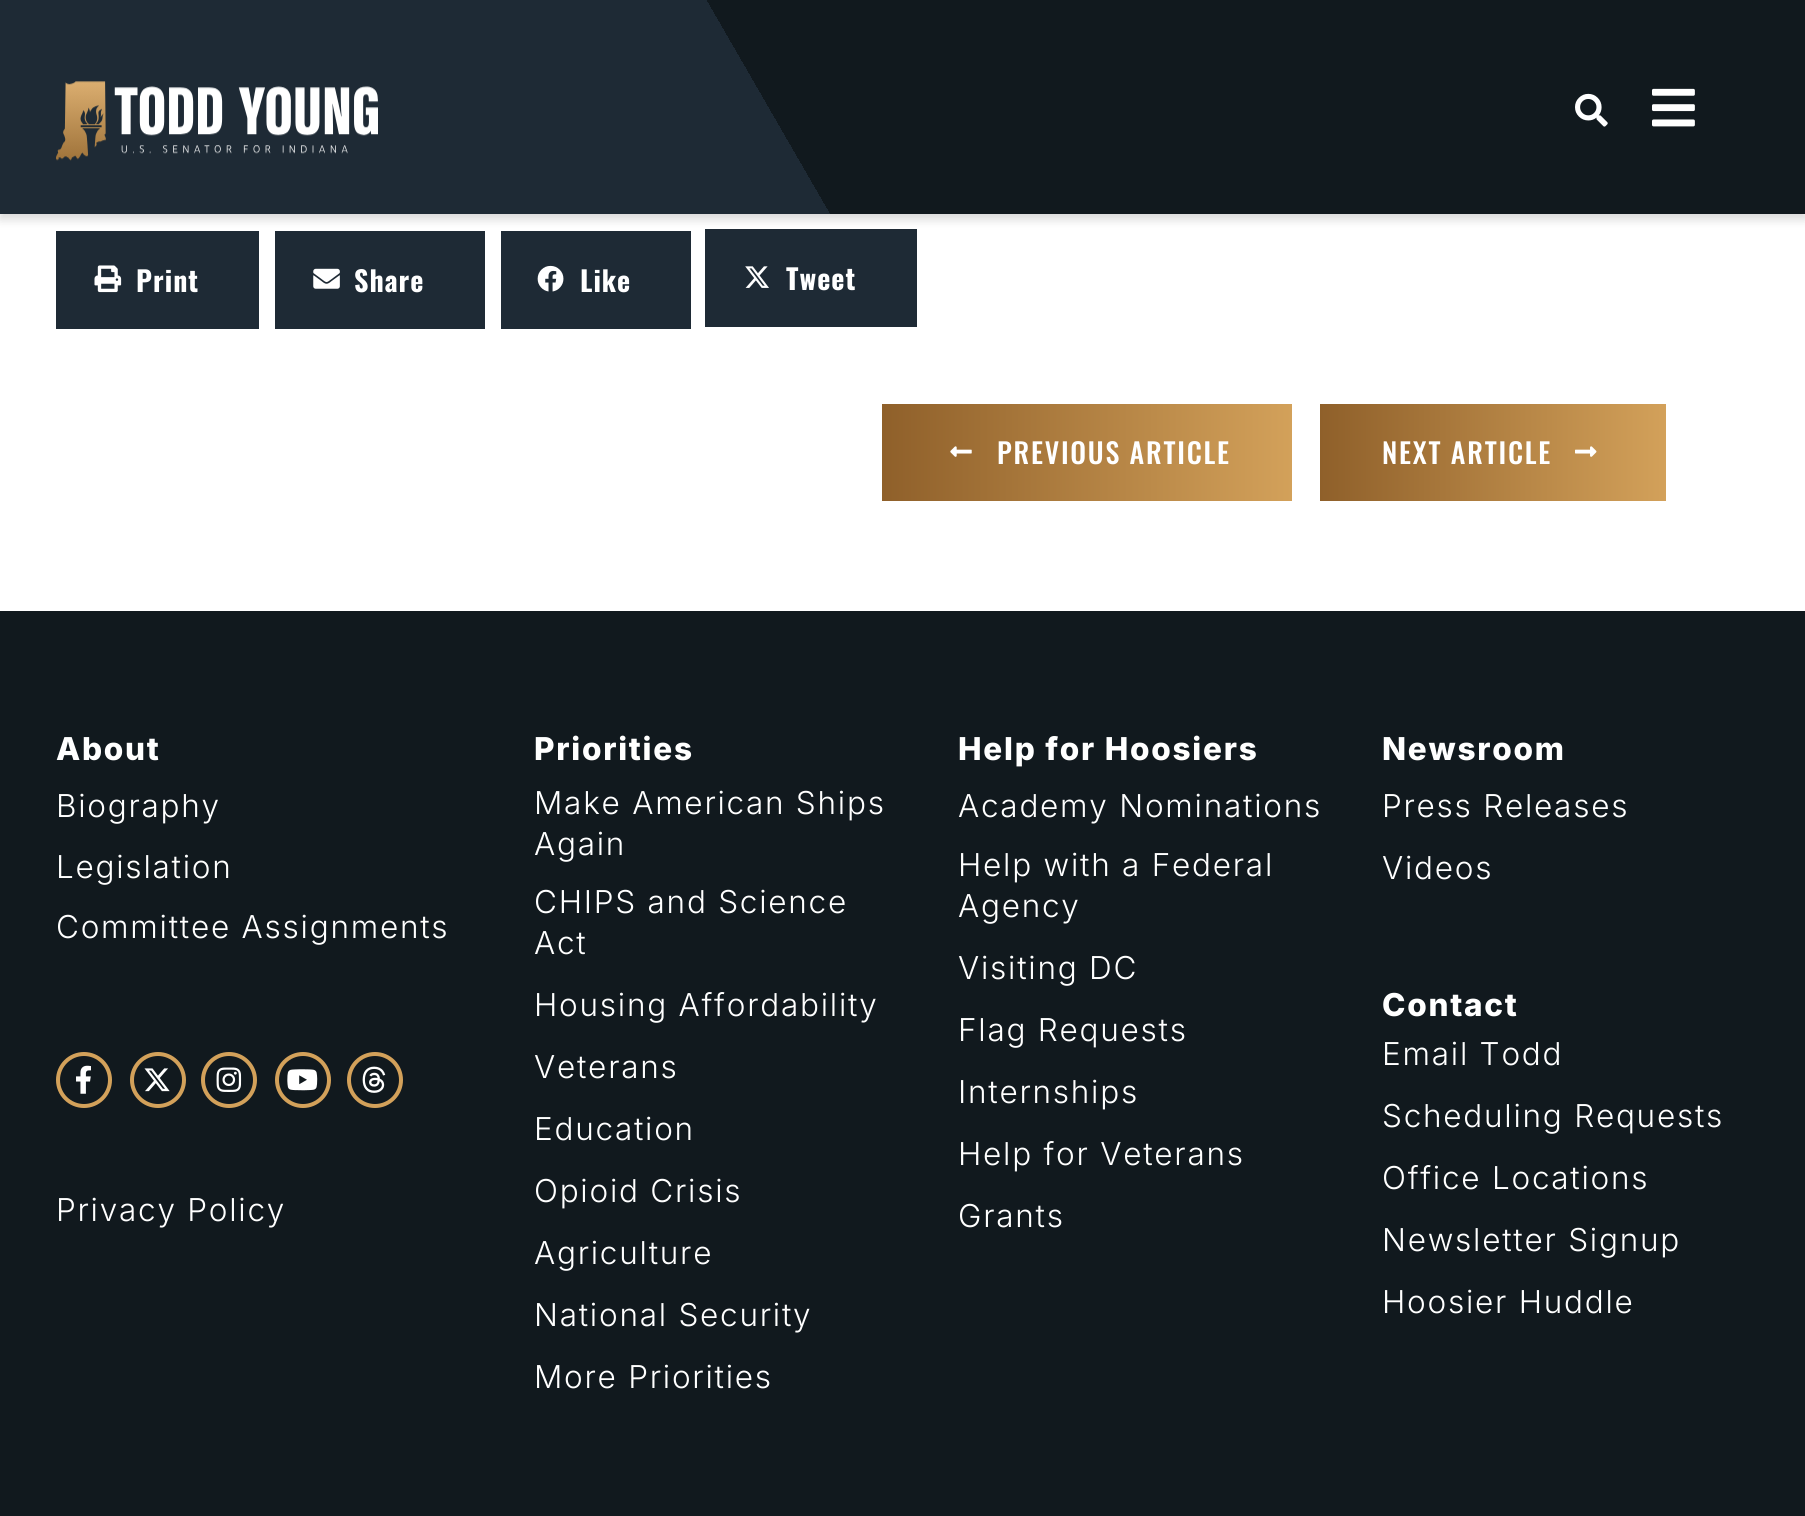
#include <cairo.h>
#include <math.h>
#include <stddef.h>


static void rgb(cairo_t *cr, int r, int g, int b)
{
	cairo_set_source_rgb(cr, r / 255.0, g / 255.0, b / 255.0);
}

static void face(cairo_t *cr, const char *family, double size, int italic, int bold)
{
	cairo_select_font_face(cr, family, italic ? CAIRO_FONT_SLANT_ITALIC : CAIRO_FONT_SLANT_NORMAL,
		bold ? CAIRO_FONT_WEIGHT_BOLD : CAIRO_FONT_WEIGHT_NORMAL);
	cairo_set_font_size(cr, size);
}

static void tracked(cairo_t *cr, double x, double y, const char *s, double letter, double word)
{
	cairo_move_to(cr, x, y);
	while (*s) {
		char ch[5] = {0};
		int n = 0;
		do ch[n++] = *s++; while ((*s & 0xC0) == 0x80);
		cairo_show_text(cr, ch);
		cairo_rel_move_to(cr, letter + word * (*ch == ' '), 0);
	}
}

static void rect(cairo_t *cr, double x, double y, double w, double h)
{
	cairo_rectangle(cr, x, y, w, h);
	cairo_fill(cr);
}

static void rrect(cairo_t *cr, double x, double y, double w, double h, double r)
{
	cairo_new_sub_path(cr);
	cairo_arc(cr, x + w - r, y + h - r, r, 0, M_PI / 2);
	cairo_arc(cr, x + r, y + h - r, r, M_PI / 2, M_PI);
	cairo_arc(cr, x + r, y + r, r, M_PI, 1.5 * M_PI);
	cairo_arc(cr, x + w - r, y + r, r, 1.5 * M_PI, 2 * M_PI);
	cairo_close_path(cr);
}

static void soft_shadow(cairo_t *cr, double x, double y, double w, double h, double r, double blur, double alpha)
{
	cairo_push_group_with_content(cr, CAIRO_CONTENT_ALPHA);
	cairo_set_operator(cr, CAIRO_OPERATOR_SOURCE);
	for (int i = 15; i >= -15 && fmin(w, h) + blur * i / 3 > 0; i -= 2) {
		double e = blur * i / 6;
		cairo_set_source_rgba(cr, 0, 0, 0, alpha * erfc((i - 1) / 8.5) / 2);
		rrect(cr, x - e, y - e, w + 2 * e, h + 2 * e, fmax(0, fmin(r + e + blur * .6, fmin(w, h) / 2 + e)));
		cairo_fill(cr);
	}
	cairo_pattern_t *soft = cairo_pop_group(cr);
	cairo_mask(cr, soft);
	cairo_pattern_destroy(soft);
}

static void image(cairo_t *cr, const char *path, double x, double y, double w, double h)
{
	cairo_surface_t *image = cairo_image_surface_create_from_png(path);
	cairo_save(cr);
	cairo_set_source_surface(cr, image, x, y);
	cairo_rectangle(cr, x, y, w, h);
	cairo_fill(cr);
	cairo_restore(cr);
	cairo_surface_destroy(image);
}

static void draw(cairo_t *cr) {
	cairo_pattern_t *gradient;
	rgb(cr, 255, 255, 255);
	cairo_paint(cr);
	rgb(cr, 30, 42, 53);
	rect(cr, 56, 231, 203, 98);
	rect(cr, 275, 231, 210, 98);
	rect(cr, 501, 231, 190, 98);
	rect(cr, 705, 229, 212, 98);
	rgb(cr, 0, 0, 0);
	soft_shadow(cr, 0, 5, 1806, 214, 0, 5, 0.16);
	gradient = cairo_pattern_create_linear(180, 524, 1626, -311);
	cairo_pattern_add_color_stop_rgba(gradient, 0.43, 0.118, 0.165, 0.208, 1);
	cairo_pattern_add_color_stop_rgba(gradient, 0.43, 0.067, 0.098, 0.118, 1);
	cairo_set_source(cr, gradient);
	cairo_pattern_destroy(gradient);
	rect(cr, 0, 0, 1805, 214);
	image(cr, "image0.png", 56, 81, 322, 80);
	image(cr, "image1.png", 1575, 93, 33, 34);
	image(cr, "image2.png", 1652, 88, 43, 39);
	image(cr, "image3.png", 94, 265, 28, 28);
	face(cr, "Oswald", 28, 0, 1);
	rgb(cr, 255, 255, 255);
	tracked(cr, 136, 292, "Print", 1, 0);
	image(cr, "image4.png", 313, 268, 27, 21);
	tracked(cr, 354, 292, "Share", 1, 0);
	image(cr, "image5.png", 537, 265, 27, 27);
	tracked(cr, 580, 292, "Like", 1, 0);
	image(cr, "image6.png", 745, 266, 24, 22);
	tracked(cr, 786, 290, "Tweet", 1, 0);
	gradient = cairo_pattern_create_linear(882, 452, 1292, 452);
	cairo_pattern_add_color_stop_rgba(gradient, 0, 0.561, 0.376, 0.165, 1);
	cairo_pattern_add_color_stop_rgba(gradient, 1, 0.827, 0.631, 0.353, 1);
	cairo_set_source(cr, gradient);
	cairo_pattern_destroy(gradient);
	rect(cr, 882, 404, 410, 97);
	image(cr, "image7.png", 950, 446, 22, 11);
	face(cr, "Oswald Medium", 28, 0, 0);
	rgb(cr, 255, 255, 255);
	tracked(cr, 997, 464, "PREVIOUS ARTICLE", 1.75, 0);
	gradient = cairo_pattern_create_linear(1320, 452, 1666, 452);
	cairo_pattern_add_color_stop_rgba(gradient, 0, 0.561, 0.376, 0.165, 1);
	cairo_pattern_add_color_stop_rgba(gradient, 1, 0.827, 0.631, 0.353, 1);
	cairo_set_source(cr, gradient);
	cairo_pattern_destroy(gradient);
	rect(cr, 1320, 404, 346, 97);
	rgb(cr, 255, 255, 255);
	tracked(cr, 1382, 464, "NEXT ARTICLE", 1.75, 0);
	image(cr, "image8.png", 1575, 446, 22, 11);
	rgb(cr, 17, 25, 30);
	rect(cr, 0, 611, 1805, 905);
	face(cr, "Inter ExtraBold", 31.5, 0, 0);
	rgb(cr, 255, 255, 255);
	tracked(cr, 56, 760, "About", 1.75, 0);
	face(cr, "Inter Light", 31.5, 0, 0);
	tracked(cr, 56, 817, "Biography", 1.75, 0);
	tracked(cr, 56, 878, "Legislation", 1.75, 0);
	tracked(cr, 56, 938, "Committee Assignments", 1.75, 0);
	cairo_new_path(cr);
	cairo_arc(cr, 84, 1080, 26, 0, 2 * M_PI);
	rgb(cr, 211, 161, 90);
	cairo_set_line_width(cr, 4);
	cairo_stroke(cr);
	image(cr, "image9.png", 76, 1065, 15, 29);
	cairo_arc(cr, 158, 1080, 26, 0, 2 * M_PI);
	cairo_stroke(cr);
	image(cr, "image10.png", 144, 1068, 26, 24);
	cairo_arc(cr, 229, 1080, 26, 0, 2 * M_PI);
	cairo_stroke(cr);
	image(cr, "image11.png", 216, 1067, 26, 25);
	cairo_arc(cr, 303, 1080, 26, 0, 2 * M_PI);
	cairo_stroke(cr);
	image(cr, "image12.png", 287, 1069, 31, 22);
	cairo_arc(cr, 375, 1080, 26, 0, 2 * M_PI);
	cairo_stroke(cr);
	image(cr, "image13.png", 362, 1066, 24, 27);
	rgb(cr, 255, 255, 255);
	tracked(cr, 56, 1221, "Privacy Policy", 1.75, 0);
	face(cr, "Inter ExtraBold", 31.5, 0, 0);
	tracked(cr, 534, 760, "Priorities", 1.75, 0);
	face(cr, "Inter Light", 31.5, 0, 0);
	tracked(cr, 534, 814, "Make American Ships", 1.75, 0);
	tracked(cr, 534, 855, "Again", 1.75, 0);
	tracked(cr, 534, 913, "CHIPS and Science", 1.75, 0);
	tracked(cr, 534, 954, "Act", 1.75, 0);
	tracked(cr, 534, 1016, "Housing Affordability", 1.75, 0);
	tracked(cr, 534, 1078, "Veterans", 1.75, 0);
	tracked(cr, 534, 1140, "Education", 1.75, 0);
	tracked(cr, 534, 1202, "Opioid Crisis", 1.75, 0);
	tracked(cr, 534, 1264, "Agriculture", 1.75, 0);
	tracked(cr, 534, 1326, "National Security", 1.75, 0);
	tracked(cr, 534, 1388, "More Priorities", 1.75, 0);
	face(cr, "Inter ExtraBold", 31.5, 0, 0);
	tracked(cr, 958, 760, "Help for Hoosiers", 1.75, 0);
	face(cr, "Inter Light", 31.5, 0, 0);
	tracked(cr, 958, 817, "Academy Nominations", 1.75, 0);
	tracked(cr, 958, 876, "Help with a Federal", 1.75, 0);
	tracked(cr, 958, 917, "Agency", 1.75, 0);
	tracked(cr, 958, 979, "Visiting DC", 1.75, 0);
	tracked(cr, 958, 1041, "Flag Requests", 1.75, 0);
	tracked(cr, 958, 1103, "Internships", 1.75, 0);
	tracked(cr, 958, 1165, "Help for Veterans", 1.75, 0);
	tracked(cr, 958, 1227, "Grants", 1.75, 0);
	face(cr, "Inter ExtraBold", 31.5, 0, 0);
	tracked(cr, 1382, 760, "Newsroom", 1.75, 0);
	face(cr, "Inter Light", 31.5, 0, 0);
	tracked(cr, 1382, 817, "Press Releases", 1.75, 0);
	tracked(cr, 1382, 879, "Videos", 1.75, 0);
	face(cr, "Inter ExtraBold", 31.5, 0, 0);
	tracked(cr, 1382, 1016, "Contact", 1.75, 0);
	face(cr, "Inter Light", 31.5, 0, 0);
	tracked(cr, 1382, 1065, "Email Todd", 1.75, 0);
	tracked(cr, 1382, 1127, "Scheduling Requests", 1.75, 0);
	tracked(cr, 1382, 1189, "Office Locations", 1.75, 0);
	tracked(cr, 1382, 1251, "Newsletter Signup", 1.75, 0);
	tracked(cr, 1382, 1313, "Hoosier Huddle", 1.75, 0);
}

int main(void) {
	cairo_surface_t *surface = cairo_image_surface_create(CAIRO_FORMAT_RGB24, 1805, 1516);
	cairo_t *cr = cairo_create(surface);
	cairo_font_options_t *options = cairo_font_options_create();
	cairo_font_options_set_hint_metrics(options, CAIRO_HINT_METRICS_OFF);
	cairo_font_options_set_hint_style(options, CAIRO_HINT_STYLE_NONE);
	cairo_set_font_options(cr, options);
	cairo_set_miter_limit(cr, 4);
	draw(cr);
	cairo_surface_write_to_png(surface, "render.png");
	cairo_font_options_destroy(options);
	cairo_destroy(cr);
	cairo_surface_destroy(surface);
	return 0;
}
